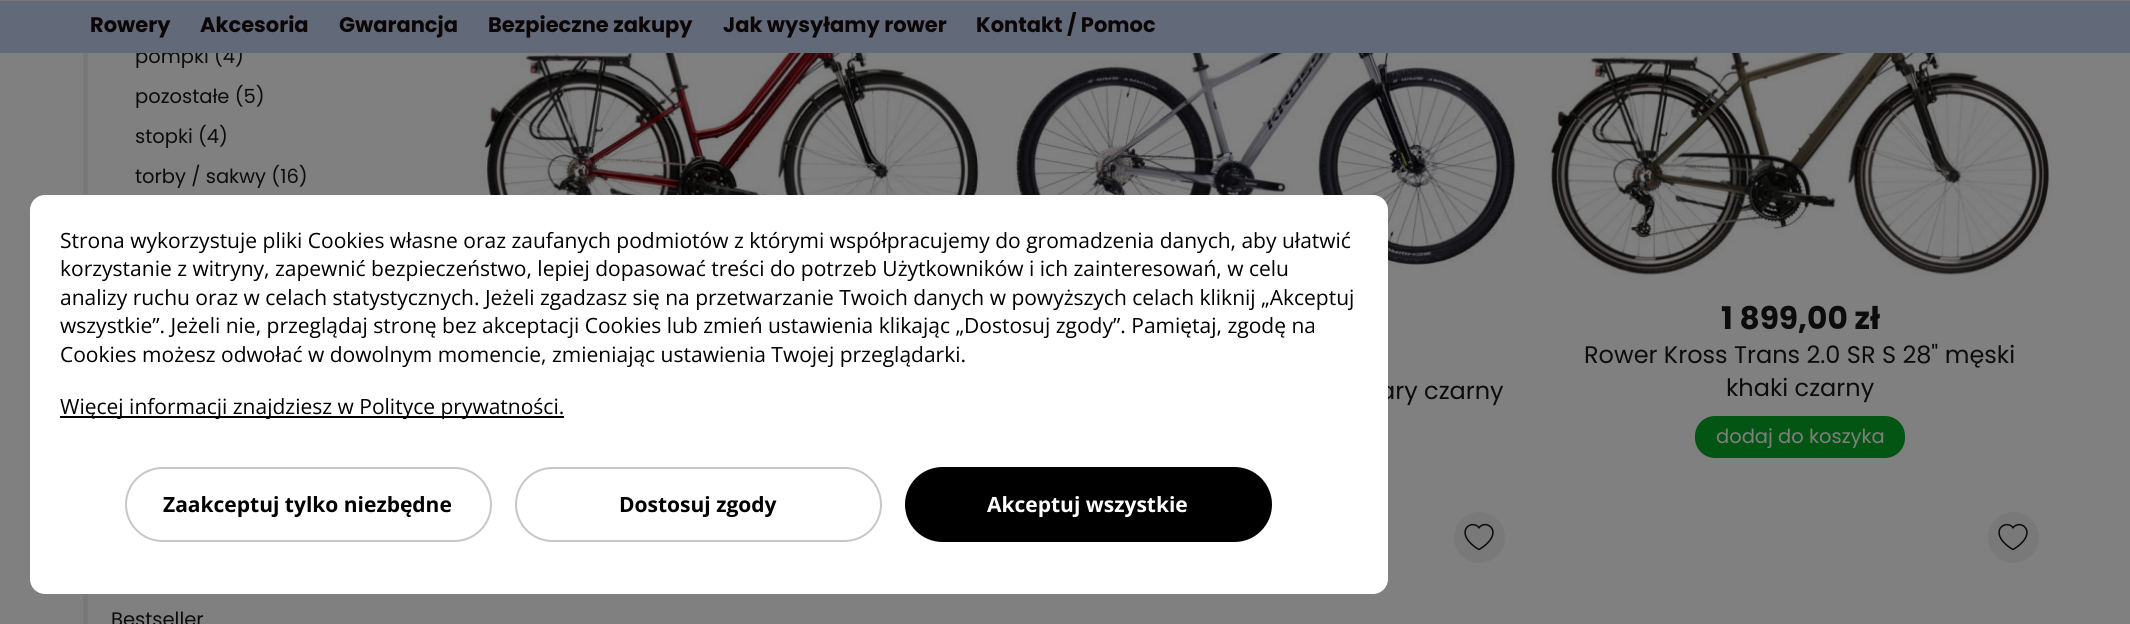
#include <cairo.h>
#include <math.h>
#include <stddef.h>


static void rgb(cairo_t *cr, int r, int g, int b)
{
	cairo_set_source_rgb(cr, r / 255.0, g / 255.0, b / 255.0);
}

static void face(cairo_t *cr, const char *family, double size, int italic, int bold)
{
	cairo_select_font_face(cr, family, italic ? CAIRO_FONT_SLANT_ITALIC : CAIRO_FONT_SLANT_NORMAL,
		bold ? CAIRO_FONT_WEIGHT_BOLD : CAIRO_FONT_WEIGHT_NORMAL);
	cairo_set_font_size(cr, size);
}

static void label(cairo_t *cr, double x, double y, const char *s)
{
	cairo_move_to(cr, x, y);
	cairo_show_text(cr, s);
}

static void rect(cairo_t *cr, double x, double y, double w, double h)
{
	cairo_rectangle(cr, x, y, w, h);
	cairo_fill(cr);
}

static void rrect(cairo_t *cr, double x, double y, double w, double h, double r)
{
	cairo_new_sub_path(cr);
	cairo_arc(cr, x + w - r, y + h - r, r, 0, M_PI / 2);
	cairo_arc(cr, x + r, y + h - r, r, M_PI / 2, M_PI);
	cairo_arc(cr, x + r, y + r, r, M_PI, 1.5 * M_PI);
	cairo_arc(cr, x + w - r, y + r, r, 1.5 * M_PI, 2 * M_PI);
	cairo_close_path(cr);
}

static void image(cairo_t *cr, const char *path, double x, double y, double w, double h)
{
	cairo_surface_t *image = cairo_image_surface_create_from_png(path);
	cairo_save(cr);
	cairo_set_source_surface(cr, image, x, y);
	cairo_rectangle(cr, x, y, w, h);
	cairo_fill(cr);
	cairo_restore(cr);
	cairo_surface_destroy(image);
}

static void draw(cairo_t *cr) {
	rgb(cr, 128, 128, 128);
	cairo_paint(cr);
	rgb(cr, 119, 119, 119);
	rect(cr, 0, 0, 2130, 1);
	face(cr, "Poppins", 19.5, 0, 0);
	rgb(cr, 12, 12, 12);
	label(cr, 135, 63, "pompki (4)");
	rgb(cr, 98, 106, 122);
	rect(cr, 0, 1, 2130, 52);
	face(cr, "Poppins", 21, 0, 1);
	rgb(cr, 13, 6, 6);
	label(cr, 90, 32, "Rowery");
	label(cr, 200, 32, "Akcesoria");
	label(cr, 339, 32, "Gwarancja");
	label(cr, 488, 32, "Bezpieczne zakupy");
	label(cr, 723, 32, "Jak wysyłamy rower");
	label(cr, 976, 32, "Kontakt / Pomoc");
	rgb(cr, 121, 121, 121);
	rect(cr, 83, 53, 5, 145);
	face(cr, "Poppins", 19.5, 0, 0);
	rgb(cr, 12, 12, 12);
	label(cr, 135, 103, "pozostałe (5)");
	label(cr, 135, 143, "stopki (4)");
	label(cr, 135, 183, "torby / sakwy (16)");
	rgb(cr, 121, 121, 121);
	rect(cr, 83, 594, 5, 30);
	rgb(cr, 12, 12, 12);
	label(cr, 111, 626, "Bestseller");
	image(cr, "image0.png", 480, 53, 500, 142);
	image(cr, "image1.png", 1014, 53, 503, 218);
	face(cr, "Poppins", 24, 0, 0);
	label(cr, 1379, 399, "ary czarny");
	image(cr, "image2.png", 1548, 53, 503, 223);
	face(cr, "Poppins", 31.25, 0, 1);
	label(cr, 1721, 329, "1 899,00 zł");
	face(cr, "Poppins", 24, 0, 0);
	label(cr, 1584, 363, "Rower Kross Trans 2.0 SR S 28\" męski");
	label(cr, 1726, 396, "khaki czarny");
	rgb(cr, 2, 85, 19);
	rrect(cr, 1695, 416, 210, 42, 20);
	cairo_fill(cr);
	face(cr, "Poppins", 19.5, 0, 0);
	rgb(cr, 128, 128, 128);
	label(cr, 1716, 443, "dodaj do koszyka");
	rgb(cr, 121, 121, 121);
	cairo_new_path(cr);
	cairo_arc(cr, 1479.5, 537.5, 25.5, 0, 2 * M_PI);
	cairo_fill(cr);
	image(cr, "image3.png", 1464, 523, 30, 28);
	cairo_arc(cr, 2013.5, 537.5, 25.5, 0, 2 * M_PI);
	cairo_fill(cr);
	image(cr, "image3.png", 1998, 523, 30, 28);
	rgb(cr, 255, 255, 255);
	rrect(cr, 30, 195, 1358, 399, 15);
	cairo_fill(cr);
	face(cr, "Open Sans", 21, 0, 0);
	rgb(cr, 0, 0, 0);
	label(cr, 60, 248, "Strona wykorzystuje pliki Cookies własne oraz zaufanych podmiotów z którymi współpracujemy do gromadzenia danych, aby ułatwić");
	label(cr, 60, 276, "korzystanie z witryny, zapewnić bezpieczeństwo, lepiej dopasować treści do potrzeb Użytkowników i ich zainteresowań, w celu");
	label(cr, 60, 305, "analizy ruchu oraz w celach statystycznych. Jeżeli zgadzasz się na przetwarzanie Twoich danych w powyższych celach kliknij „Akceptuj");
	label(cr, 60, 333, "wszystkie”. Jeżeli nie, przeglądaj stronę bez akceptacji Cookies lub zmień ustawienia klikając „Dostosuj zgody”. Pamiętaj, zgodę na");
	label(cr, 60, 362, "Cookies możesz odwołać w dowolnym momencie, zmieniając ustawienia Twojej przeglądarki.");
	rect(cr, 60, 416, 504, 2);
	label(cr, 60, 414, "Więcej informacji znajdziesz w Polityce prywatności.");
	rrect(cr, 126, 468, 365, 73, 36.5);
	rgb(cr, 199, 199, 199);
	cairo_stroke(cr);
	face(cr, "Open Sans", 21, 0, 1);
	rgb(cr, 0, 0, 0);
	label(cr, 163, 512, "Zaakceptuj tylko niezbędne");
	rrect(cr, 516, 468, 365, 73, 36.5);
	rgb(cr, 199, 199, 199);
	cairo_stroke(cr);
	rgb(cr, 0, 0, 0);
	label(cr, 619, 512, "Dostosuj zgody");
	rrect(cr, 906, 468, 365, 73, 36.5);
	cairo_fill_preserve(cr);
	cairo_stroke(cr);
	rgb(cr, 255, 255, 255);
	label(cr, 987, 512, "Akceptuj wszystkie");
}

int main(void) {
	cairo_surface_t *surface = cairo_image_surface_create(CAIRO_FORMAT_RGB24, 2130, 624);
	cairo_t *cr = cairo_create(surface);
	cairo_font_options_t *options = cairo_font_options_create();
	cairo_font_options_set_hint_metrics(options, CAIRO_HINT_METRICS_OFF);
	cairo_font_options_set_hint_style(options, CAIRO_HINT_STYLE_NONE);
	cairo_set_font_options(cr, options);
	cairo_set_miter_limit(cr, 4);
	draw(cr);
	cairo_surface_write_to_png(surface, "render.png");
	cairo_font_options_destroy(options);
	cairo_destroy(cr);
	cairo_surface_destroy(surface);
	return 0;
}
